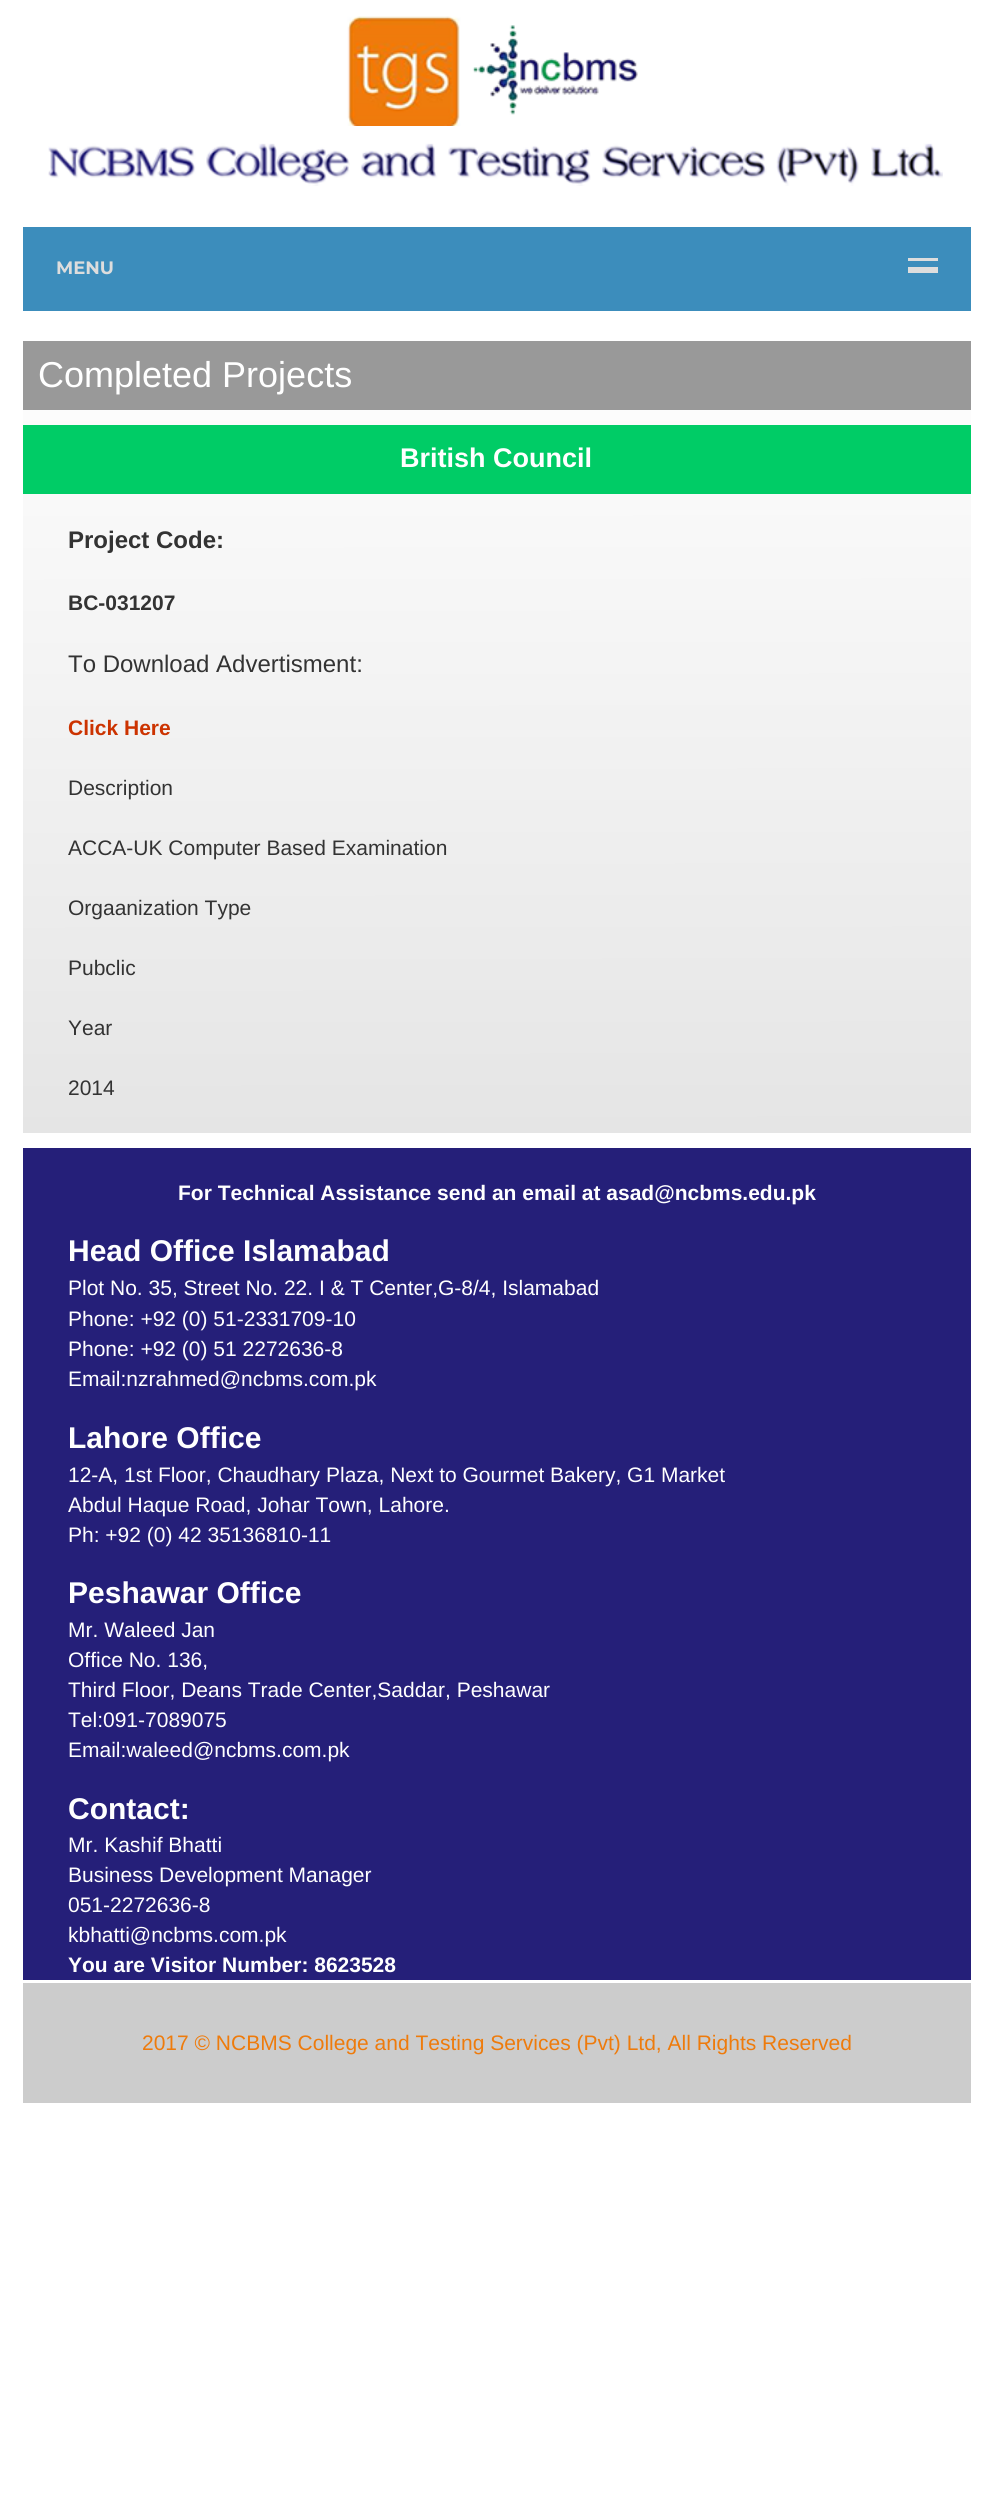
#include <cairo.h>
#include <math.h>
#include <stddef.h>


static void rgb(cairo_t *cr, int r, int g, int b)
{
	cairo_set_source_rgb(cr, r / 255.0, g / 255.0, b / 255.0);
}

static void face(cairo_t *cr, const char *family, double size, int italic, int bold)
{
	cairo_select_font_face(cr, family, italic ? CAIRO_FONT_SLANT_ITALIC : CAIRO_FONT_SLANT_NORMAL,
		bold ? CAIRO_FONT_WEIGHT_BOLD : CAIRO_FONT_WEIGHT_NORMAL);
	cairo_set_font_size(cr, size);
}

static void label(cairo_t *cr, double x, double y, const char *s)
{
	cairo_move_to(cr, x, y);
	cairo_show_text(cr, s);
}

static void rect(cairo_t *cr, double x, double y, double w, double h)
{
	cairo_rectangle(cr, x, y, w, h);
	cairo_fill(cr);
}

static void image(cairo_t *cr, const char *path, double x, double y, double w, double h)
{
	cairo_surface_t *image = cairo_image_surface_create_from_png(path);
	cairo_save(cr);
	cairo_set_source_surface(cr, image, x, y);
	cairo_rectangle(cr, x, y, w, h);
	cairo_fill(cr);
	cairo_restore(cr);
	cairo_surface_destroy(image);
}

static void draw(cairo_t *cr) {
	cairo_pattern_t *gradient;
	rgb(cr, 255, 255, 255);
	cairo_paint(cr);
	image(cr, "image0.png", 347, 16, 291, 110);
	image(cr, "image1.png", 48, 143, 895, 43);
	rgb(cr, 60, 141, 188);
	rect(cr, 23, 227, 948, 84);
	rgb(cr, 221, 221, 221);
	rect(cr, 908, 258, 30, 3);
	face(cr, "Montserrat", 18, 0, 1);
	label(cr, 56, 274, "MENU");
	rect(cr, 908, 267, 30, 6);
	gradient = cairo_pattern_create_linear(496, 310, 497, 1133);
	cairo_pattern_add_color_stop_rgba(gradient, 0, 1, 1, 1, 1);
	cairo_pattern_add_color_stop_rgba(gradient, 1, 0.898, 0.898, 0.898, 1);
	cairo_set_source(cr, gradient);
	cairo_pattern_destroy(gradient);
	rect(cr, 23, 389, 948, 744);
	rgb(cr, 153, 153, 153);
	rect(cr, 23, 341, 948, 69);
	face(cr, "Liberation Sans", 36, 0, 0);
	rgb(cr, 255, 255, 255);
	label(cr, 38, 387, "Completed Projects");
	rgb(cr, 0, 204, 102);
	rect(cr, 23, 425, 948, 69);
	face(cr, "Liberation Sans", 27, 0, 1);
	rgb(cr, 255, 255, 255);
	label(cr, 400, 467, "British Council");
	face(cr, "Liberation Sans", 24, 0, 1);
	rgb(cr, 51, 51, 51);
	label(cr, 68, 548, "Project Code:");
	face(cr, "Liberation Sans", 21, 0, 1);
	label(cr, 68, 610, "BC-031207");
	face(cr, "Liberation Sans", 24, 0, 0);
	label(cr, 68, 672, "To Download Advertisment:");
	face(cr, "Liberation Sans", 21, 0, 1);
	rgb(cr, 204, 51, 0);
	label(cr, 68, 735, "Click Here");
	face(cr, "Liberation Sans", 21, 0, 0);
	rgb(cr, 51, 51, 51);
	label(cr, 68, 795, "Description");
	label(cr, 68, 855, "ACCA-UK Computer Based Examination");
	label(cr, 68, 915, "Orgaanization Type");
	label(cr, 68, 975, "Pubclic");
	label(cr, 68, 1035, "Year");
	label(cr, 68, 1095, "2014");
	rgb(cr, 37, 31, 121);
	rect(cr, 23, 1148, 948, 832);
	face(cr, "Liberation Sans", 21, 0, 1);
	rgb(cr, 255, 255, 255);
	label(cr, 178, 1200, "For Technical Assistance send an email at asad@ncbms.edu.pk");
	face(cr, "Liberation Sans", 30, 0, 1);
	label(cr, 68, 1261, "Head Office Islamabad");
	face(cr, "Liberation Sans", 21, 0, 0);
	label(cr, 68, 1295, "Plot No. 35, Street No. 22. I & T Center,G-8/4, Islamabad");
	label(cr, 68, 1326, "Phone: +92 (0) 51-2331709-10");
	label(cr, 68, 1356, "Phone: +92 (0) 51 2272636-8");
	label(cr, 68, 1386, "Email:nzrahmed@ncbms.com.pk");
	face(cr, "Liberation Sans", 30, 0, 1);
	label(cr, 68, 1448, "Lahore Office");
	face(cr, "Liberation Sans", 21, 0, 0);
	label(cr, 68, 1482, "12-A, 1st Floor, Chaudhary Plaza, Next to Gourmet Bakery, G1 Market");
	label(cr, 68, 1512, "Abdul Haque Road, Johar Town, Lahore.");
	label(cr, 68, 1542, "Ph: +92 (0) 42 35136810-11");
	face(cr, "Liberation Sans", 30, 0, 1);
	label(cr, 68, 1603, "Peshawar Office");
	face(cr, "Liberation Sans", 21, 0, 0);
	label(cr, 68, 1637, "Mr. Waleed Jan");
	label(cr, 68, 1667, "Office No. 136,");
	label(cr, 68, 1697, "Third Floor, Deans Trade Center,Saddar, Peshawar");
	label(cr, 68, 1727, "Tel:091-7089075");
	label(cr, 68, 1757, "Email:waleed@ncbms.com.pk");
	face(cr, "Liberation Sans", 30, 0, 1);
	label(cr, 68, 1819, "Contact:");
	face(cr, "Liberation Sans", 21, 0, 0);
	label(cr, 68, 1852, "Mr. Kashif Bhatti");
	label(cr, 68, 1882, "Business Development Manager");
	label(cr, 68, 1912, "051-2272636-8");
	label(cr, 68, 1942, "kbhatti@ncbms.com.pk");
	face(cr, "Liberation Sans", 21, 0, 1);
	label(cr, 68, 1972, "You are Visitor Number: 8623528");
	rgb(cr, 204, 204, 204);
	rect(cr, 23, 1983, 948, 120);
	face(cr, "Liberation Sans", 21, 0, 0);
	rgb(cr, 238, 123, 12);
	label(cr, 142, 2050, "2017 © NCBMS College and Testing Services (Pvt) Ltd, All Rights Reserved");
}

int main(void) {
	cairo_surface_t *surface = cairo_image_surface_create(CAIRO_FORMAT_RGB24, 993, 2495);
	cairo_t *cr = cairo_create(surface);
	cairo_font_options_t *options = cairo_font_options_create();
	cairo_font_options_set_hint_metrics(options, CAIRO_HINT_METRICS_OFF);
	cairo_font_options_set_hint_style(options, CAIRO_HINT_STYLE_NONE);
	cairo_set_font_options(cr, options);
	cairo_set_miter_limit(cr, 4);
	draw(cr);
	cairo_surface_write_to_png(surface, "render.png");
	cairo_font_options_destroy(options);
	cairo_destroy(cr);
	cairo_surface_destroy(surface);
	return 0;
}
